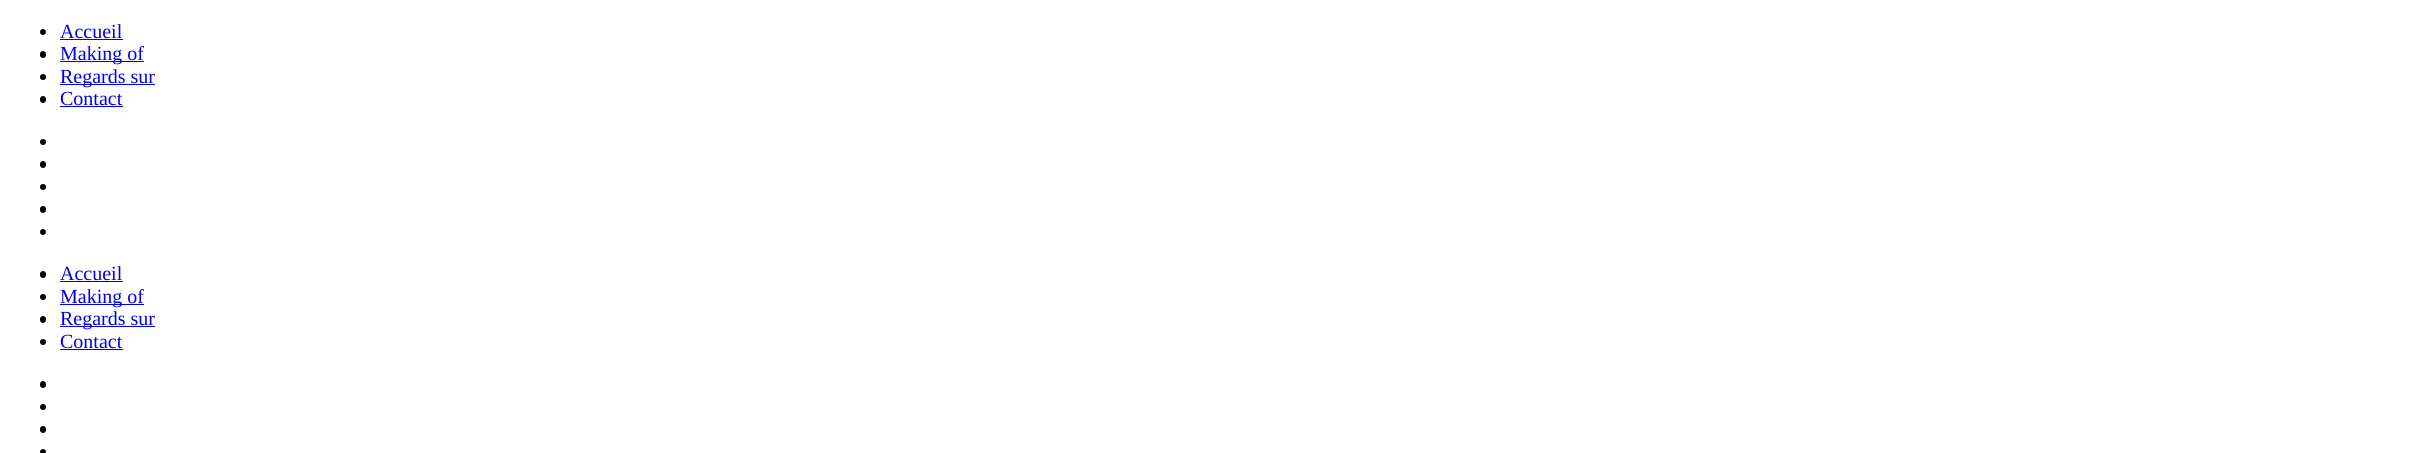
#include <cairo.h>
#include <math.h>
#include <stddef.h>


static void rgb(cairo_t *cr, int r, int g, int b)
{
	cairo_set_source_rgb(cr, r / 255.0, g / 255.0, b / 255.0);
}

static void face(cairo_t *cr, const char *family, double size, int italic, int bold)
{
	cairo_select_font_face(cr, family, italic ? CAIRO_FONT_SLANT_ITALIC : CAIRO_FONT_SLANT_NORMAL,
		bold ? CAIRO_FONT_WEIGHT_BOLD : CAIRO_FONT_WEIGHT_NORMAL);
	cairo_set_font_size(cr, size);
}

static void label(cairo_t *cr, double x, double y, const char *s)
{
	cairo_move_to(cr, x, y);
	cairo_show_text(cr, s);
}

static void rect(cairo_t *cr, double x, double y, double w, double h)
{
	cairo_rectangle(cr, x, y, w, h);
	cairo_fill(cr);
}

static void rrect(cairo_t *cr, double x, double y, double w, double h, double r)
{
	cairo_new_sub_path(cr);
	cairo_arc(cr, x + w - r, y + h - r, r, 0, M_PI / 2);
	cairo_arc(cr, x + r, y + h - r, r, M_PI / 2, M_PI);
	cairo_arc(cr, x + r, y + r, r, M_PI, 1.5 * M_PI);
	cairo_arc(cr, x + w - r, y + r, r, 1.5 * M_PI, 2 * M_PI);
	cairo_close_path(cr);
}

static void draw(cairo_t *cr) {
	rgb(cr, 255, 255, 255);
	cairo_paint(cr);
	rgb(cr, 0, 0, 0);
	cairo_arc(cr, 43, 32, 3, 0, 2 * M_PI);
	cairo_fill(cr);
	face(cr, "Liberation Serif", 20, 0, 0);
	rgb(cr, 0, 0, 238);
	label(cr, 60, 38, "Accueil");
	rect(cr, 60, 39, 63, 1);
	rgb(cr, 0, 0, 0);
	rrect(cr, 40, 51, 6, 7, 3);
	cairo_fill(cr);
	rgb(cr, 0, 0, 238);
	rect(cr, 60, 61, 84, 1);
	label(cr, 60, 60, "Making of");
	rgb(cr, 0, 0, 0);
	cairo_new_path(cr);
	cairo_arc(cr, 43, 77, 3, 0, 2 * M_PI);
	cairo_fill(cr);
	rgb(cr, 0, 0, 238);
	rect(cr, 60, 84, 95, 1);
	label(cr, 60, 83, "Regards sur");
	rgb(cr, 0, 0, 0);
	rrect(cr, 40, 96, 6, 7, 3);
	cairo_fill(cr);
	rgb(cr, 0, 0, 238);
	label(cr, 60, 105, "Contact");
	rect(cr, 60, 106, 63, 1);
	rgb(cr, 0, 0, 0);
	cairo_new_path(cr);
	cairo_arc(cr, 43, 142, 3, 0, 2 * M_PI);
	cairo_fill(cr);
	rrect(cr, 40, 161, 6, 7, 3);
	cairo_fill(cr);
	cairo_arc(cr, 43, 187, 3, 0, 2 * M_PI);
	cairo_fill(cr);
	rrect(cr, 40, 206, 6, 7, 3);
	cairo_fill(cr);
	cairo_arc(cr, 43, 232, 3, 0, 2 * M_PI);
	cairo_fill(cr);
	rrect(cr, 40, 271, 6, 7, 3);
	cairo_fill(cr);
	rgb(cr, 0, 0, 238);
	label(cr, 60, 280, "Accueil");
	rect(cr, 60, 281, 63, 1);
	rgb(cr, 0, 0, 0);
	cairo_new_path(cr);
	cairo_arc(cr, 43, 297, 3, 0, 2 * M_PI);
	cairo_fill(cr);
	rgb(cr, 0, 0, 238);
	rect(cr, 60, 304, 84, 1);
	label(cr, 60, 303, "Making of");
	rgb(cr, 0, 0, 0);
	rrect(cr, 40, 316, 6, 7, 3);
	cairo_fill(cr);
	rgb(cr, 0, 0, 238);
	rect(cr, 60, 326, 95, 1);
	label(cr, 60, 325, "Regards sur");
	rgb(cr, 0, 0, 0);
	cairo_new_path(cr);
	cairo_arc(cr, 43, 342, 3, 0, 2 * M_PI);
	cairo_fill(cr);
	rgb(cr, 0, 0, 238);
	label(cr, 60, 348, "Contact");
	rect(cr, 60, 349, 63, 1);
	rgb(cr, 0, 0, 0);
	rrect(cr, 40, 381, 6, 7, 3);
	cairo_fill(cr);
	cairo_arc(cr, 43, 407, 3, 0, 2 * M_PI);
	cairo_fill(cr);
	rrect(cr, 40, 426, 6, 7, 3);
	cairo_fill(cr);
	cairo_arc(cr, 43, 452, 3, 0, 2 * M_PI);
	cairo_fill(cr);
}

int main(void) {
	cairo_surface_t *surface = cairo_image_surface_create(CAIRO_FORMAT_RGB24, 2414, 453);
	cairo_t *cr = cairo_create(surface);
	cairo_font_options_t *options = cairo_font_options_create();
	cairo_font_options_set_hint_metrics(options, CAIRO_HINT_METRICS_OFF);
	cairo_font_options_set_hint_style(options, CAIRO_HINT_STYLE_NONE);
	cairo_set_font_options(cr, options);
	cairo_set_miter_limit(cr, 4);
	draw(cr);
	cairo_surface_write_to_png(surface, "render.png");
	cairo_font_options_destroy(options);
	cairo_destroy(cr);
	cairo_surface_destroy(surface);
	return 0;
}
